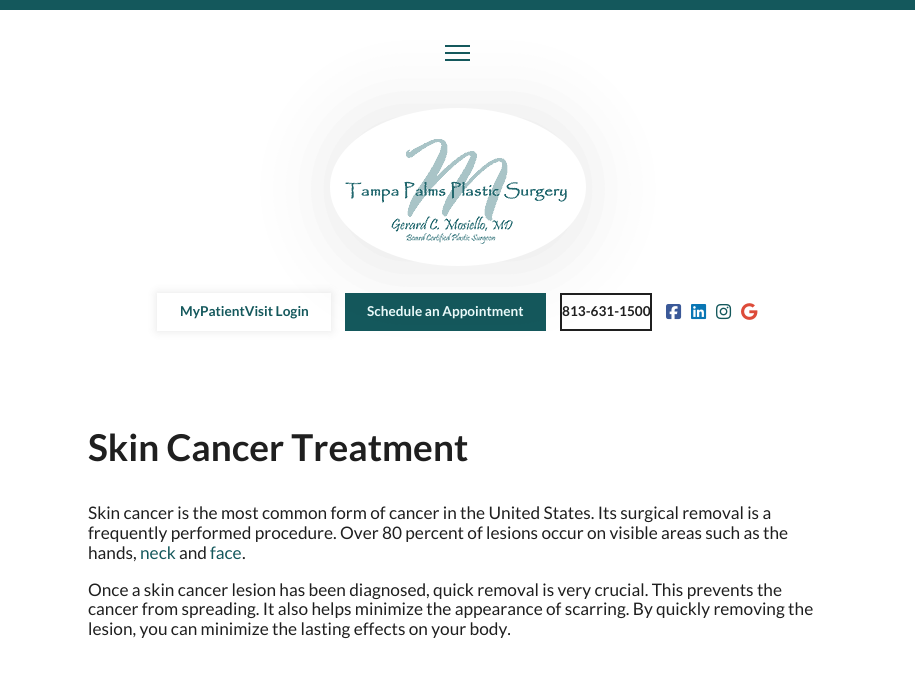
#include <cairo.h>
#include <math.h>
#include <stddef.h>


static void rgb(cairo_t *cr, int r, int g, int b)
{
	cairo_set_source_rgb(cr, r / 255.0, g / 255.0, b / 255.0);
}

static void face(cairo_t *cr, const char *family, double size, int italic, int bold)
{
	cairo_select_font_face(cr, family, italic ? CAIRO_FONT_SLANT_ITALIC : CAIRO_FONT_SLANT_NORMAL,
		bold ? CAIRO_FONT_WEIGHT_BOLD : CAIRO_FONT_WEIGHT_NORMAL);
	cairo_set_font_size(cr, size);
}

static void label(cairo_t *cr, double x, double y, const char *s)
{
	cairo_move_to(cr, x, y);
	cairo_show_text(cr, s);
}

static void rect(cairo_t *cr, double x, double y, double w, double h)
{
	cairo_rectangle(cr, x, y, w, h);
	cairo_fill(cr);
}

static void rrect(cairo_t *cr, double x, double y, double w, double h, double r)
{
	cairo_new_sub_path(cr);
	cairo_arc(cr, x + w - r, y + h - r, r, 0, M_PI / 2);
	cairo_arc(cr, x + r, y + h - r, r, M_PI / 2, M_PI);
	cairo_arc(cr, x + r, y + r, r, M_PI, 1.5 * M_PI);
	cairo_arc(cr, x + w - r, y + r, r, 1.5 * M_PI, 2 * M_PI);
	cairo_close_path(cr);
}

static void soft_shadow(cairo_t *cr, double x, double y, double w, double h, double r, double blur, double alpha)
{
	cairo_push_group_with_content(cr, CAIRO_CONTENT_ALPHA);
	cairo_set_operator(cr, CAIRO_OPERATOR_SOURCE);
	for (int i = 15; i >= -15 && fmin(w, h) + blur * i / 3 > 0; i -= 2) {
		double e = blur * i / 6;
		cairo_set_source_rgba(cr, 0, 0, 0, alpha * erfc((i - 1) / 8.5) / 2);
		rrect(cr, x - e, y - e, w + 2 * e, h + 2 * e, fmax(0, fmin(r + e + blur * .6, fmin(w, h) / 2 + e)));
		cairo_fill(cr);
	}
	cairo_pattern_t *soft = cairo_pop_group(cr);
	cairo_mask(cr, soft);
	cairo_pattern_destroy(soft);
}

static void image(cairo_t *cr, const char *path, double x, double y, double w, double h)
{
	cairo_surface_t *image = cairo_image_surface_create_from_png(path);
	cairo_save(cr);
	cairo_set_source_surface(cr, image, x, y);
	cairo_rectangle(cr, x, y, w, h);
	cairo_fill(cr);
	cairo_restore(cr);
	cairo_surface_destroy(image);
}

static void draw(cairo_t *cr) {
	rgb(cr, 255, 255, 255);
	cairo_paint(cr);
	rgb(cr, 20, 88, 92);
	rect(cr, 0, 0, 915, 10);
	cairo_save(cr);
	cairo_set_fill_rule(cr, CAIRO_FILL_RULE_EVEN_ODD);
	cairo_new_path(cr);
	cairo_move_to(cr, 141, 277);
	cairo_line_to(cr, 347, 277);
	cairo_line_to(cr, 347, 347);
	cairo_line_to(cr, 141, 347);
	cairo_close_path(cr);
	cairo_move_to(cr, 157, 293);
	cairo_line_to(cr, 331, 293);
	cairo_line_to(cr, 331, 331);
	cairo_line_to(cr, 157, 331);
	cairo_close_path(cr);
	cairo_clip(cr);
	rgb(cr, 0, 0, 0);
	soft_shadow(cr, 157, 293, 174, 38, 0, 5, 0.1);
	cairo_restore(cr);
	rect(cr, 345, 293, 201, 38);
	cairo_rectangle(cr, 561, 294, 90, 36);
	rgb(cr, 31, 31, 31);
	cairo_stroke(cr);
	image(cr, "image1.png", 666, 304, 16, 16);
	image(cr, "image2.png", 691, 304, 16, 16);
	rgb(cr, 0, 0, 0);
	soft_shadow(cr, 330, 110, 256, 158, 79, 38, 0.09);
	rgb(cr, 255, 255, 255);
	cairo_new_path(cr);
	cairo_move_to(cr, 458, 108);
	cairo_curve_to(cr, 528.5, 108, 586, 143.5, 586, 187);
	cairo_curve_to(cr, 586, 230.5, 528.5, 266, 458, 266);
	cairo_curve_to(cr, 387.5, 266, 330, 230.5, 330, 187);
	cairo_curve_to(cr, 330, 143.5, 387.5, 108, 458, 108);
	cairo_close_path(cr);
	cairo_fill(cr);
	image(cr, "image0.png", 345, 139, 222, 105);
	rgb(cr, 20, 88, 92);
	rect(cr, 445, 45, 25, 2);
	rect(cr, 445, 52, 25, 2);
	rect(cr, 445, 59, 25, 2);
	face(cr, "Lato", 13.6, 0, 1);
	label(cr, 180, 316, "MyPatientVisit Login");
	rgb(cr, 234, 250, 250);
	label(cr, 367, 316, "Schedule an Appointment");
	rgb(cr, 31, 31, 31);
	label(cr, 562, 316, "813-631-1500");
	image(cr, "image3.png", 716, 304, 16, 16);
	image(cr, "image4.png", 741, 303, 17, 17);
	face(cr, "Lato", 37, 0, 1);
	label(cr, 88, 461, "Skin Cancer Treatment");
	face(cr, "Lato", 17.25, 0, 0);
	label(cr, 88, 519, "Skin cancer is the most common form of cancer in the United States. Its surgical removal is a");
	label(cr, 88, 539, "frequently performed procedure. Over 80 percent of lesions occur on visible areas such as the");
	label(cr, 88, 559, "hands,");
	rgb(cr, 20, 88, 92);
	label(cr, 140, 559, "neck");
	rgb(cr, 31, 31, 31);
	label(cr, 179, 559, "and");
	rgb(cr, 20, 88, 92);
	label(cr, 210, 559, "face");
	rgb(cr, 31, 31, 31);
	label(cr, 242, 559, ".");
	label(cr, 88, 596, "Once a skin cancer lesion has been diagnosed, quick removal is very crucial. This prevents the");
	label(cr, 88, 615, "cancer from spreading. It also helps minimize the appearance of scarring. By quickly removing the");
	label(cr, 88, 635, "lesion, you can minimize the lasting effects on your body.");
}

int main(void) {
	cairo_surface_t *surface = cairo_image_surface_create(CAIRO_FORMAT_RGB24, 915, 682);
	cairo_t *cr = cairo_create(surface);
	cairo_font_options_t *options = cairo_font_options_create();
	cairo_font_options_set_hint_metrics(options, CAIRO_HINT_METRICS_OFF);
	cairo_font_options_set_hint_style(options, CAIRO_HINT_STYLE_NONE);
	cairo_set_font_options(cr, options);
	cairo_set_miter_limit(cr, 4);
	draw(cr);
	cairo_surface_write_to_png(surface, "render.png");
	cairo_font_options_destroy(options);
	cairo_destroy(cr);
	cairo_surface_destroy(surface);
	return 0;
}
